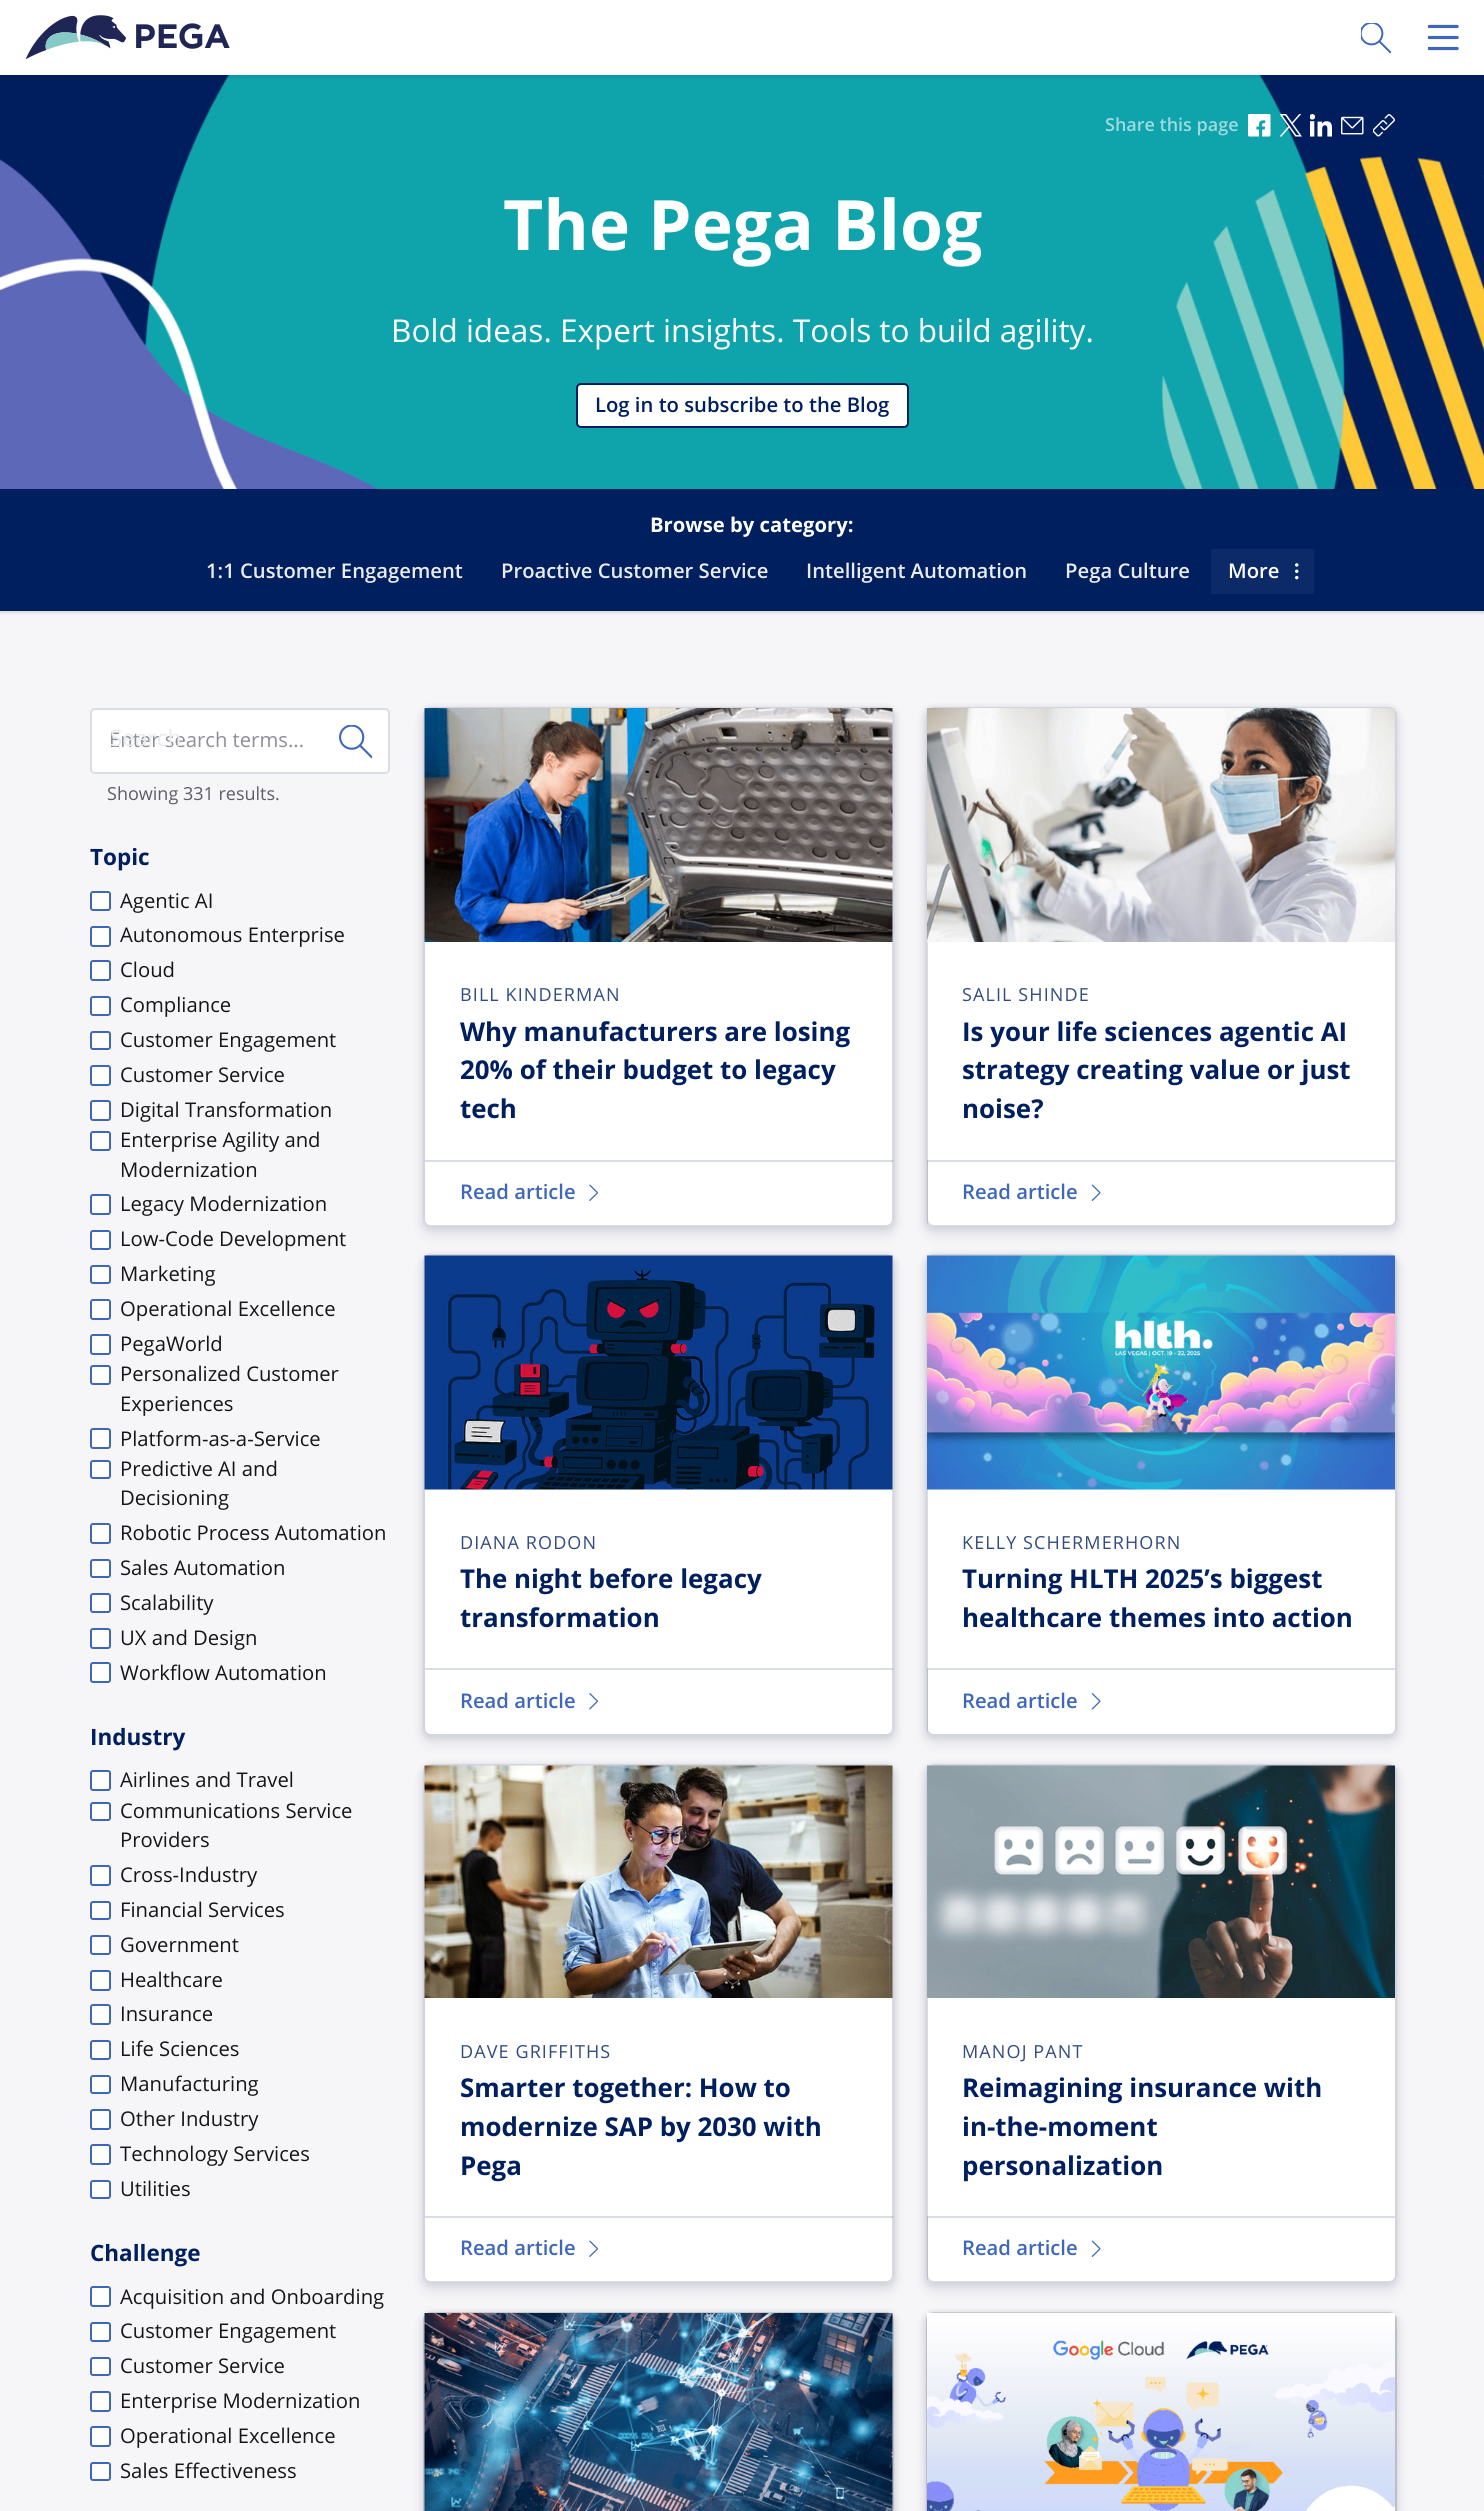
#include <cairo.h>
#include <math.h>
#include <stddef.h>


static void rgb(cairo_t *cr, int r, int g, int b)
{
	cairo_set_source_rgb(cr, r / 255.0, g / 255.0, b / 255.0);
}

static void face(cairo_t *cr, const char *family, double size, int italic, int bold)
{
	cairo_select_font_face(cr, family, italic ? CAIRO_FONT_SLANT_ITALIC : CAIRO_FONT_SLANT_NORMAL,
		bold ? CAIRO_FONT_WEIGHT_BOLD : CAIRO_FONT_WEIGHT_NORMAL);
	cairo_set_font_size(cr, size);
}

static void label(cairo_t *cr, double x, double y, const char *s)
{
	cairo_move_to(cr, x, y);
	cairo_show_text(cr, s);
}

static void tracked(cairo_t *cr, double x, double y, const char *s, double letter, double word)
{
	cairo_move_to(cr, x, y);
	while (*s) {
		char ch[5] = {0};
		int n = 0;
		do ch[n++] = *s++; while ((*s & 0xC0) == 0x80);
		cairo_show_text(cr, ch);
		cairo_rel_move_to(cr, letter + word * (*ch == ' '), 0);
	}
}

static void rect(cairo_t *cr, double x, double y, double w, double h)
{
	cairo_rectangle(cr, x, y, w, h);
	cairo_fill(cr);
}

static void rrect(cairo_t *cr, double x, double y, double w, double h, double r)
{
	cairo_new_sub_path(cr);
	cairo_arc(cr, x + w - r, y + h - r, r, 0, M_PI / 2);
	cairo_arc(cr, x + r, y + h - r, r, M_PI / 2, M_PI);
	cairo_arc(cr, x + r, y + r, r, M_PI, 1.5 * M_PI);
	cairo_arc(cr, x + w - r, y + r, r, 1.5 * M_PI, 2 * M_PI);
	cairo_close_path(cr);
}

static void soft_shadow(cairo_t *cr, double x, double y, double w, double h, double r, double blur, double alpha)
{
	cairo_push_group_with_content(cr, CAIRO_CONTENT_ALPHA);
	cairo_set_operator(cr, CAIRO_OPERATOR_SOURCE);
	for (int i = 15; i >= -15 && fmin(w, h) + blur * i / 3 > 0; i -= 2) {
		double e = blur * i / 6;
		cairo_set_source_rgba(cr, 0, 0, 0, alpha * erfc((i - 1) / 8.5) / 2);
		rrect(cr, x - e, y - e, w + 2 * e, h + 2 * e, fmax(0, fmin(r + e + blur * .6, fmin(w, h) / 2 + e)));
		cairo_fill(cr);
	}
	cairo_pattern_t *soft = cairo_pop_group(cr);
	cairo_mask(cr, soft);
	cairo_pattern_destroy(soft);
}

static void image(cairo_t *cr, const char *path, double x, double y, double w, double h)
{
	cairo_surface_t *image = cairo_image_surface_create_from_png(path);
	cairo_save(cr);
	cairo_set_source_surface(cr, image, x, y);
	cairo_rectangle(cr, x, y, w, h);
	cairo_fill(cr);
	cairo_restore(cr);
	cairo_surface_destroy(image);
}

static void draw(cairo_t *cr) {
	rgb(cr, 255, 255, 255);
	cairo_paint(cr);
	image(cr, "image3.png", 0, 75, 1484, 414);
	cairo_save(cr);
	cairo_rectangle(cr, 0, 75, 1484, 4);
	cairo_clip(cr);
	rgb(cr, 6, 10, 36);
	soft_shadow(cr, -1, 0, 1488, 78, 0, 1.5, 0.08);
	cairo_restore(cr);
	image(cr, "image0.png", 26, 15, 204, 44);
	image(cr, "image1.png", 1361, 23, 31, 31);
	image(cr, "image2.png", 1428, 24, 31, 27);
	face(cr, "Open Sans SemiBold", 18, 0, 0);
	rgb(cr, 159, 219, 222);
	label(cr, 1105, 131, "Share this page");
	image(cr, "image4.png", 1248, 114, 23, 23);
	image(cr, "image5.png", 1280, 114, 22, 23);
	image(cr, "image6.png", 1310, 114, 22, 23);
	image(cr, "image7.png", 1341, 116, 23, 19);
	image(cr, "image8.png", 1373, 114, 22, 23);
	face(cr, "Open Sans", 69.5, 0, 1);
	rgb(cr, 255, 255, 255);
	label(cr, 503, 250, "The Pega Blog");
	face(cr, "Open Sans", 31.5, 0, 0);
	label(cr, 391, 342, "Bold ideas. Expert insights. Tools to build agility.");
	rrect(cr, 577, 384, 331, 43, 4);
	cairo_fill_preserve(cr);
	rgb(cr, 0, 31, 95);
	cairo_stroke(cr);
	face(cr, "Open Sans SemiBold", 20.25, 0, 0);
	label(cr, 595, 412, "Log in to subscribe to the Blog");
	rgb(cr, 246, 246, 249);
	rect(cr, 0, 611, 1484, 1900);
	rgb(cr, 0, 0, 0);
	soft_shadow(cr, 0, 491, 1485, 121, 0, 2, 0.2);
	rgb(cr, 0, 31, 95);
	rect(cr, 0, 489, 1484, 122);
	face(cr, "Open Sans", 20.25, 0, 1);
	rgb(cr, 255, 255, 255);
	label(cr, 650, 532, "Browse by category:");
	face(cr, "Open Sans SemiBold", 20.25, 0, 0);
	rgb(cr, 234, 235, 237);
	label(cr, 206, 578, "1:1 Customer Engagement");
	label(cr, 501, 578, "Proactive Customer Service");
	label(cr, 806, 578, "Intelligent Automation");
	label(cr, 1065, 578, "Pega Culture");
	image(cr, "image9.png", 1295, 563, 4, 17);
	cairo_set_source_rgba(cr, 1, 1, 1, 0.05);
	rect(cr, 1211, 549, 103, 45);
	rgb(cr, 255, 255, 255);
	label(cr, 1228, 578, "More");
	rrect(cr, 90, 708, 300, 66, 5);
	cairo_fill(cr);
	rrect(cr, 91, 709, 298, 64, 4);
	cairo_set_source_rgba(cr, 0.031, 0.11, 0.271, 0.15);
	cairo_stroke(cr);
	face(cr, "Open Sans", 20.25, 0, 0);
	rgb(cr, 141, 142, 153);
	label(cr, 109, 747, "Enter search terms...");
	face(cr, "Open Sans", 22.5, 0, 0);
	rgb(cr, 234, 235, 237);
	label(cr, 110, 746, "Search");
	image(cr, "image10.png", 339, 725, 33, 34);
	face(cr, "Open Sans", 18, 0, 0);
	rgb(cr, 92, 93, 102);
	label(cr, 107, 800, "Showing 331 results.");
	face(cr, "Open Sans", 22.5, 0, 1);
	rgb(cr, 0, 31, 95);
	label(cr, 90, 865, "Topic");
	rgb(cr, 255, 255, 255);
	rrect(cr, 91, 892, 19, 18, 2);
	cairo_fill_preserve(cr);
	rgb(cr, 62, 103, 187);
	cairo_stroke(cr);
	face(cr, "Open Sans", 20.25, 0, 0);
	rgb(cr, 21, 22, 25);
	label(cr, 120, 908, "Agentic AI");
	rgb(cr, 255, 255, 255);
	rrect(cr, 91, 927, 19, 19, 2);
	cairo_fill_preserve(cr);
	rgb(cr, 62, 103, 187);
	cairo_stroke(cr);
	rgb(cr, 21, 22, 25);
	label(cr, 120, 942, "Autonomous Enterprise");
	rgb(cr, 255, 255, 255);
	rrect(cr, 91, 961, 19, 19, 2);
	cairo_fill_preserve(cr);
	rgb(cr, 62, 103, 187);
	cairo_stroke(cr);
	rgb(cr, 21, 22, 25);
	label(cr, 120, 977, "Cloud");
	rgb(cr, 255, 255, 255);
	rrect(cr, 91, 997, 19, 18, 2);
	cairo_fill_preserve(cr);
	rgb(cr, 62, 103, 187);
	cairo_stroke(cr);
	rgb(cr, 21, 22, 25);
	label(cr, 120, 1012, "Compliance");
	rgb(cr, 255, 255, 255);
	rrect(cr, 91, 1032, 19, 17, 2);
	cairo_fill_preserve(cr);
	rgb(cr, 62, 103, 187);
	cairo_stroke(cr);
	rgb(cr, 21, 22, 25);
	label(cr, 120, 1047, "Customer Engagement");
	rgb(cr, 255, 255, 255);
	rrect(cr, 91, 1066, 19, 19, 2);
	cairo_fill_preserve(cr);
	rgb(cr, 62, 103, 187);
	cairo_stroke(cr);
	rgb(cr, 21, 22, 25);
	label(cr, 120, 1082, "Customer Service");
	rgb(cr, 255, 255, 255);
	rrect(cr, 91, 1101, 19, 19, 2);
	cairo_fill_preserve(cr);
	rgb(cr, 62, 103, 187);
	cairo_stroke(cr);
	rgb(cr, 21, 22, 25);
	label(cr, 120, 1117, "Digital Transformation");
	rgb(cr, 255, 255, 255);
	rrect(cr, 91, 1132, 19, 18, 2);
	cairo_fill_preserve(cr);
	rgb(cr, 62, 103, 187);
	cairo_stroke(cr);
	rgb(cr, 21, 22, 25);
	label(cr, 120, 1147, "Enterprise Agility and");
	label(cr, 120, 1177, "Modernization");
	rgb(cr, 255, 255, 255);
	rrect(cr, 91, 1195, 19, 19, 2);
	cairo_fill_preserve(cr);
	rgb(cr, 62, 103, 187);
	cairo_stroke(cr);
	rgb(cr, 21, 22, 25);
	label(cr, 120, 1211, "Legacy Modernization");
	rgb(cr, 255, 255, 255);
	rrect(cr, 91, 1231, 19, 18, 2);
	cairo_fill_preserve(cr);
	rgb(cr, 62, 103, 187);
	cairo_stroke(cr);
	rgb(cr, 21, 22, 25);
	label(cr, 120, 1246, "Low-Code Development");
	rgb(cr, 255, 255, 255);
	rrect(cr, 91, 1266, 19, 17, 2);
	cairo_fill_preserve(cr);
	rgb(cr, 62, 103, 187);
	cairo_stroke(cr);
	rgb(cr, 21, 22, 25);
	label(cr, 120, 1281, "Marketing");
	rgb(cr, 255, 255, 255);
	rrect(cr, 91, 1300, 19, 19, 2);
	cairo_fill_preserve(cr);
	rgb(cr, 62, 103, 187);
	cairo_stroke(cr);
	rgb(cr, 21, 22, 25);
	label(cr, 120, 1316, "Operational Excellence");
	rgb(cr, 255, 255, 255);
	rrect(cr, 91, 1335, 19, 19, 2);
	cairo_fill_preserve(cr);
	rgb(cr, 62, 103, 187);
	cairo_stroke(cr);
	rgb(cr, 21, 22, 25);
	label(cr, 120, 1351, "PegaWorld");
	rgb(cr, 255, 255, 255);
	rrect(cr, 91, 1366, 19, 18, 2);
	cairo_fill_preserve(cr);
	rgb(cr, 62, 103, 187);
	cairo_stroke(cr);
	rgb(cr, 21, 22, 25);
	label(cr, 120, 1381, "Personalized Customer");
	label(cr, 120, 1411, "Experiences");
	rgb(cr, 255, 255, 255);
	rrect(cr, 91, 1429, 19, 19, 2);
	cairo_fill_preserve(cr);
	rgb(cr, 62, 103, 187);
	cairo_stroke(cr);
	rgb(cr, 21, 22, 25);
	label(cr, 120, 1446, "Platform-as-a-Service");
	rgb(cr, 255, 255, 255);
	rrect(cr, 91, 1461, 19, 17, 2);
	cairo_fill_preserve(cr);
	rgb(cr, 62, 103, 187);
	cairo_stroke(cr);
	rgb(cr, 21, 22, 25);
	label(cr, 120, 1476, "Predictive AI and");
	label(cr, 120, 1505, "Decisioning");
	rgb(cr, 255, 255, 255);
	rrect(cr, 91, 1524, 19, 19, 2);
	cairo_fill_preserve(cr);
	rgb(cr, 62, 103, 187);
	cairo_stroke(cr);
	rgb(cr, 21, 22, 25);
	label(cr, 120, 1540, "Robotic Process Automation");
	rgb(cr, 255, 255, 255);
	rrect(cr, 91, 1560, 19, 17, 2);
	cairo_fill_preserve(cr);
	rgb(cr, 62, 103, 187);
	cairo_stroke(cr);
	rgb(cr, 21, 22, 25);
	label(cr, 120, 1575, "Sales Automation");
	rgb(cr, 255, 255, 255);
	rrect(cr, 91, 1594, 19, 18, 2);
	cairo_fill_preserve(cr);
	rgb(cr, 62, 103, 187);
	cairo_stroke(cr);
	rgb(cr, 21, 22, 25);
	label(cr, 120, 1610, "Scalability");
	rgb(cr, 255, 255, 255);
	rrect(cr, 91, 1629, 19, 19, 2);
	cairo_fill_preserve(cr);
	rgb(cr, 62, 103, 187);
	cairo_stroke(cr);
	rgb(cr, 21, 22, 25);
	label(cr, 120, 1645, "UX and Design");
	rgb(cr, 255, 255, 255);
	rrect(cr, 91, 1663, 19, 19, 2);
	cairo_fill_preserve(cr);
	rgb(cr, 62, 103, 187);
	cairo_stroke(cr);
	rgb(cr, 21, 22, 25);
	label(cr, 120, 1680, "Workflow Automation");
	face(cr, "Open Sans", 22.5, 0, 1);
	rgb(cr, 0, 31, 95);
	label(cr, 90, 1745, "Industry");
	rgb(cr, 255, 255, 255);
	rrect(cr, 91, 1771, 19, 19, 2);
	cairo_fill_preserve(cr);
	rgb(cr, 62, 103, 187);
	cairo_stroke(cr);
	face(cr, "Open Sans", 20.25, 0, 0);
	rgb(cr, 21, 22, 25);
	label(cr, 120, 1787, "Airlines and Travel");
	rgb(cr, 255, 255, 255);
	rrect(cr, 91, 1803, 19, 17, 2);
	cairo_fill_preserve(cr);
	rgb(cr, 62, 103, 187);
	cairo_stroke(cr);
	rgb(cr, 21, 22, 25);
	label(cr, 120, 1818, "Communications Service");
	label(cr, 120, 1847, "Providers");
	rgb(cr, 255, 255, 255);
	rrect(cr, 91, 1866, 19, 19, 2);
	cairo_fill_preserve(cr);
	rgb(cr, 62, 103, 187);
	cairo_stroke(cr);
	rgb(cr, 21, 22, 25);
	label(cr, 120, 1882, "Cross-Industry");
	rgb(cr, 255, 255, 255);
	rrect(cr, 91, 1902, 19, 17, 2);
	cairo_fill_preserve(cr);
	rgb(cr, 62, 103, 187);
	cairo_stroke(cr);
	rgb(cr, 21, 22, 25);
	label(cr, 120, 1917, "Financial Services");
	rgb(cr, 255, 255, 255);
	rrect(cr, 91, 1936, 19, 18, 2);
	cairo_fill_preserve(cr);
	rgb(cr, 62, 103, 187);
	cairo_stroke(cr);
	rgb(cr, 21, 22, 25);
	label(cr, 120, 1952, "Government");
	rgb(cr, 255, 255, 255);
	rrect(cr, 91, 1971, 19, 19, 2);
	cairo_fill_preserve(cr);
	rgb(cr, 62, 103, 187);
	cairo_stroke(cr);
	rgb(cr, 21, 22, 25);
	label(cr, 120, 1987, "Healthcare");
	rgb(cr, 255, 255, 255);
	rrect(cr, 91, 2005, 19, 19, 2);
	cairo_fill_preserve(cr);
	rgb(cr, 62, 103, 187);
	cairo_stroke(cr);
	rgb(cr, 21, 22, 25);
	label(cr, 120, 2021, "Insurance");
	rgb(cr, 255, 255, 255);
	rrect(cr, 91, 2041, 19, 18, 2);
	cairo_fill_preserve(cr);
	rgb(cr, 62, 103, 187);
	cairo_stroke(cr);
	rgb(cr, 21, 22, 25);
	label(cr, 120, 2056, "Life Sciences");
	rgb(cr, 255, 255, 255);
	rrect(cr, 91, 2076, 19, 17, 2);
	cairo_fill_preserve(cr);
	rgb(cr, 62, 103, 187);
	cairo_stroke(cr);
	rgb(cr, 21, 22, 25);
	label(cr, 120, 2091, "Manufacturing");
	rgb(cr, 255, 255, 255);
	rrect(cr, 91, 2110, 19, 19, 2);
	cairo_fill_preserve(cr);
	rgb(cr, 62, 103, 187);
	cairo_stroke(cr);
	rgb(cr, 21, 22, 25);
	label(cr, 120, 2126, "Other Industry");
	rgb(cr, 255, 255, 255);
	rrect(cr, 91, 2145, 19, 19, 2);
	cairo_fill_preserve(cr);
	rgb(cr, 62, 103, 187);
	cairo_stroke(cr);
	rgb(cr, 21, 22, 25);
	label(cr, 120, 2161, "Technology Services");
	rgb(cr, 255, 255, 255);
	rrect(cr, 91, 2181, 19, 17, 2);
	cairo_fill_preserve(cr);
	rgb(cr, 62, 103, 187);
	cairo_stroke(cr);
	rgb(cr, 21, 22, 25);
	label(cr, 120, 2196, "Utilities");
	face(cr, "Open Sans", 22.5, 0, 1);
	rgb(cr, 0, 31, 95);
	label(cr, 90, 2261, "Challenge");
	rgb(cr, 255, 255, 255);
	rrect(cr, 91, 2287, 19, 19, 2);
	cairo_fill_preserve(cr);
	rgb(cr, 62, 103, 187);
	cairo_stroke(cr);
	face(cr, "Open Sans", 20.25, 0, 0);
	rgb(cr, 21, 22, 25);
	label(cr, 120, 2304, "Acquisition and Onboarding");
	rgb(cr, 255, 255, 255);
	rrect(cr, 91, 2323, 19, 18, 2);
	cairo_fill_preserve(cr);
	rgb(cr, 62, 103, 187);
	cairo_stroke(cr);
	rgb(cr, 21, 22, 25);
	label(cr, 120, 2338, "Customer Engagement");
	rgb(cr, 255, 255, 255);
	rrect(cr, 91, 2358, 19, 17, 2);
	cairo_fill_preserve(cr);
	rgb(cr, 62, 103, 187);
	cairo_stroke(cr);
	rgb(cr, 21, 22, 25);
	label(cr, 120, 2373, "Customer Service");
	rgb(cr, 255, 255, 255);
	rrect(cr, 91, 2392, 19, 19, 2);
	cairo_fill_preserve(cr);
	rgb(cr, 62, 103, 187);
	cairo_stroke(cr);
	rgb(cr, 21, 22, 25);
	label(cr, 120, 2408, "Enterprise Modernization");
	rgb(cr, 255, 255, 255);
	rrect(cr, 91, 2427, 19, 19, 2);
	cairo_fill_preserve(cr);
	rgb(cr, 62, 103, 187);
	cairo_stroke(cr);
	rgb(cr, 21, 22, 25);
	label(cr, 120, 2443, "Operational Excellence");
	rgb(cr, 255, 255, 255);
	rrect(cr, 91, 2463, 19, 17, 2);
	cairo_fill_preserve(cr);
	rgb(cr, 62, 103, 187);
	cairo_stroke(cr);
	rgb(cr, 21, 22, 25);
	label(cr, 120, 2478, "Sales Effectiveness");
	rgb(cr, 255, 255, 255);
	rrect(cr, 425, 708, 468, 518, 5);
	cairo_fill(cr);
	cairo_save(cr);
	cairo_set_fill_rule(cr, CAIRO_FILL_RULE_EVEN_ODD);
	cairo_new_path(cr);
	cairo_move_to(cr, 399, 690);
	cairo_line_to(cr, 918, 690);
	cairo_line_to(cr, 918, 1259);
	cairo_line_to(cr, 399, 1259);
	cairo_close_path(cr);
	cairo_move_to(cr, 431, 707);
	cairo_line_to(cr, 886, 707);
	cairo_curve_to(cr, 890.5, 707, 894, 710.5, 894, 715);
	cairo_line_to(cr, 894, 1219);
	cairo_curve_to(cr, 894, 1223.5, 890.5, 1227, 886, 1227);
	cairo_line_to(cr, 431, 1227);
	cairo_curve_to(cr, 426.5, 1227, 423, 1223.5, 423, 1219);
	cairo_line_to(cr, 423, 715);
	cairo_curve_to(cr, 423, 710.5, 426.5, 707, 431, 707);
	cairo_close_path(cr);
	cairo_clip(cr);
	rgb(cr, 6, 10, 36);
	soft_shadow(cr, 423, 714, 471, 521, 8, 7.5, 0.08);
	cairo_restore(cr);
	cairo_save(cr);
	cairo_set_fill_rule(cr, CAIRO_FILL_RULE_EVEN_ODD);
	cairo_new_path(cr);
	cairo_move_to(cr, 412, 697);
	cairo_line_to(cr, 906, 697);
	cairo_line_to(cr, 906, 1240);
	cairo_line_to(cr, 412, 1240);
	cairo_close_path(cr);
	cairo_move_to(cr, 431, 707);
	cairo_line_to(cr, 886, 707);
	cairo_curve_to(cr, 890.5, 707, 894, 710.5, 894, 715);
	cairo_line_to(cr, 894, 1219);
	cairo_curve_to(cr, 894, 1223.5, 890.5, 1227, 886, 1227);
	cairo_line_to(cr, 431, 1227);
	cairo_curve_to(cr, 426.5, 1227, 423, 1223.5, 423, 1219);
	cairo_line_to(cr, 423, 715);
	cairo_curve_to(cr, 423, 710.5, 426.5, 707, 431, 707);
	cairo_close_path(cr);
	cairo_clip(cr);
	rgb(cr, 6, 10, 36);
	soft_shadow(cr, 422, 707, 474, 523, 9, 3, 0.1);
	cairo_restore(cr);
	rrect(cr, 424, 708, 469, 518, 7);
	cairo_set_source_rgba(cr, 0.031, 0.11, 0.271, 0.15);
	cairo_stroke(cr);
	image(cr, "image11.png", 424, 708, 469, 234);
	face(cr, "Open Sans", 18, 0, 0);
	rgb(cr, 51, 76, 127);
	tracked(cr, 460, 1001, "BILL KINDERMAN", 1.1, 0);
	face(cr, "Open Sans", 25.9, 0, 1);
	rgb(cr, 0, 31, 95);
	label(cr, 460, 1041, "Why manufacturers are losing");
	label(cr, 460, 1079, "20% of their budget to legacy");
	label(cr, 460, 1118, "tech");
	cairo_set_source_rgba(cr, 0.031, 0.11, 0.271, 0.15);
	rect(cr, 425, 1160, 468, 2);
	face(cr, "Open Sans SemiBold", 20.25, 0, 0);
	rgb(cr, 62, 103, 187);
	label(cr, 460, 1199, "Read article");
	image(cr, "image12.png", 589, 1184, 9, 17);
	rgb(cr, 255, 255, 255);
	rrect(cr, 927, 708, 468, 518, 5);
	cairo_fill(cr);
	cairo_save(cr);
	cairo_set_fill_rule(cr, CAIRO_FILL_RULE_EVEN_ODD);
	cairo_new_path(cr);
	cairo_move_to(cr, 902, 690);
	cairo_line_to(cr, 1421, 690);
	cairo_line_to(cr, 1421, 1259);
	cairo_line_to(cr, 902, 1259);
	cairo_close_path(cr);
	cairo_move_to(cr, 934, 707);
	cairo_line_to(cr, 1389, 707);
	cairo_curve_to(cr, 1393.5, 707, 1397, 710.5, 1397, 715);
	cairo_line_to(cr, 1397, 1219);
	cairo_curve_to(cr, 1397, 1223.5, 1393.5, 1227, 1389, 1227);
	cairo_line_to(cr, 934, 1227);
	cairo_curve_to(cr, 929.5, 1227, 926, 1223.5, 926, 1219);
	cairo_line_to(cr, 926, 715);
	cairo_curve_to(cr, 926, 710.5, 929.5, 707, 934, 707);
	cairo_close_path(cr);
	cairo_clip(cr);
	rgb(cr, 6, 10, 36);
	soft_shadow(cr, 926, 714, 471, 521, 8, 7.5, 0.08);
	cairo_restore(cr);
	cairo_save(cr);
	cairo_set_fill_rule(cr, CAIRO_FILL_RULE_EVEN_ODD);
	cairo_new_path(cr);
	cairo_move_to(cr, 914, 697);
	cairo_line_to(cr, 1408, 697);
	cairo_line_to(cr, 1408, 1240);
	cairo_line_to(cr, 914, 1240);
	cairo_close_path(cr);
	cairo_move_to(cr, 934, 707);
	cairo_line_to(cr, 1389, 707);
	cairo_curve_to(cr, 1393.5, 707, 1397, 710.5, 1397, 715);
	cairo_line_to(cr, 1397, 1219);
	cairo_curve_to(cr, 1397, 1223.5, 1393.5, 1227, 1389, 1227);
	cairo_line_to(cr, 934, 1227);
	cairo_curve_to(cr, 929.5, 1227, 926, 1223.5, 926, 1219);
	cairo_line_to(cr, 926, 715);
	cairo_curve_to(cr, 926, 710.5, 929.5, 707, 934, 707);
	cairo_close_path(cr);
	cairo_clip(cr);
	rgb(cr, 6, 10, 36);
	soft_shadow(cr, 924, 707, 474, 523, 9, 3, 0.1);
	cairo_restore(cr);
	rrect(cr, 927, 708, 469, 518, 7);
	cairo_set_source_rgba(cr, 0.031, 0.11, 0.271, 0.15);
	cairo_stroke(cr);
	image(cr, "image13.png", 927, 708, 468, 234);
	face(cr, "Open Sans", 18, 0, 0);
	rgb(cr, 51, 76, 127);
	tracked(cr, 962, 1001, "SALIL SHINDE", 1.1, 0);
	face(cr, "Open Sans", 25.9, 0, 1);
	rgb(cr, 0, 31, 95);
	label(cr, 962, 1041, "Is your life sciences agentic AI");
	label(cr, 962, 1079, "strategy creating value or just");
	label(cr, 962, 1118, "noise?");
	cairo_set_source_rgba(cr, 0.031, 0.11, 0.271, 0.15);
	rect(cr, 927, 1160, 468, 2);
	cairo_save(cr);
	cairo_new_path(cr);
	cairo_move_to(cr, 927, 1161);
	cairo_line_to(cr, 1395, 1161);
	cairo_line_to(cr, 1395, 1221);
	cairo_curve_to(cr, 1395, 1224, 1393, 1226, 1390, 1226);
	cairo_line_to(cr, 932, 1226);
	cairo_curve_to(cr, 929, 1226, 927, 1224, 927, 1221);
	cairo_close_path(cr);
	cairo_clip(cr);
	rect(cr, 927, 1161, 1, 65);
	cairo_restore(cr);
	face(cr, "Open Sans SemiBold", 20.25, 0, 0);
	rgb(cr, 62, 103, 187);
	label(cr, 962, 1199, "Read article");
	image(cr, "image14.png", 1091, 1184, 10, 17);
	rgb(cr, 255, 255, 255);
	rrect(cr, 425, 1256, 468, 478, 5);
	cairo_fill(cr);
	cairo_save(cr);
	cairo_set_fill_rule(cr, CAIRO_FILL_RULE_EVEN_ODD);
	cairo_new_path(cr);
	cairo_move_to(cr, 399, 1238);
	cairo_line_to(cr, 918, 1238);
	cairo_line_to(cr, 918, 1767);
	cairo_line_to(cr, 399, 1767);
	cairo_close_path(cr);
	cairo_move_to(cr, 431, 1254);
	cairo_line_to(cr, 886, 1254);
	cairo_curve_to(cr, 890.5, 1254, 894, 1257.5, 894, 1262);
	cairo_line_to(cr, 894, 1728);
	cairo_curve_to(cr, 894, 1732.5, 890.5, 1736, 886, 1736);
	cairo_line_to(cr, 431, 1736);
	cairo_curve_to(cr, 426.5, 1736, 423, 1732.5, 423, 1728);
	cairo_line_to(cr, 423, 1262);
	cairo_curve_to(cr, 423, 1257.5, 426.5, 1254, 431, 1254);
	cairo_close_path(cr);
	cairo_clip(cr);
	rgb(cr, 6, 10, 36);
	soft_shadow(cr, 423, 1262, 471, 481, 8, 7.5, 0.08);
	cairo_restore(cr);
	cairo_save(cr);
	cairo_set_fill_rule(cr, CAIRO_FILL_RULE_EVEN_ODD);
	cairo_new_path(cr);
	cairo_move_to(cr, 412, 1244);
	cairo_line_to(cr, 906, 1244);
	cairo_line_to(cr, 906, 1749);
	cairo_line_to(cr, 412, 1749);
	cairo_close_path(cr);
	cairo_move_to(cr, 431, 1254);
	cairo_line_to(cr, 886, 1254);
	cairo_curve_to(cr, 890.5, 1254, 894, 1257.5, 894, 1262);
	cairo_line_to(cr, 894, 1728);
	cairo_curve_to(cr, 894, 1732.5, 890.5, 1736, 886, 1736);
	cairo_line_to(cr, 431, 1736);
	cairo_curve_to(cr, 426.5, 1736, 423, 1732.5, 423, 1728);
	cairo_line_to(cr, 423, 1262);
	cairo_curve_to(cr, 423, 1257.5, 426.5, 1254, 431, 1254);
	cairo_close_path(cr);
	cairo_clip(cr);
	rgb(cr, 6, 10, 36);
	soft_shadow(cr, 422, 1254, 474, 485, 9, 3, 0.1);
	cairo_restore(cr);
	rrect(cr, 424, 1255, 469, 480, 7);
	cairo_set_source_rgba(cr, 0.031, 0.11, 0.271, 0.15);
	cairo_stroke(cr);
	image(cr, "image15.png", 424, 1255, 469, 235);
	face(cr, "Open Sans", 18, 0, 0);
	rgb(cr, 51, 76, 127);
	tracked(cr, 460, 1549, "DIANA RODON", 1.1, 0);
	face(cr, "Open Sans", 25.9, 0, 1);
	rgb(cr, 0, 31, 95);
	label(cr, 460, 1588, "The night before legacy");
	label(cr, 460, 1627, "transformation");
	cairo_set_source_rgba(cr, 0.031, 0.11, 0.271, 0.15);
	rect(cr, 425, 1668, 468, 2);
	face(cr, "Open Sans SemiBold", 20.25, 0, 0);
	rgb(cr, 62, 103, 187);
	label(cr, 460, 1708, "Read article");
	image(cr, "image16.png", 589, 1693, 9, 17);
	rgb(cr, 255, 255, 255);
	rrect(cr, 927, 1256, 468, 478, 5);
	cairo_fill(cr);
	cairo_save(cr);
	cairo_set_fill_rule(cr, CAIRO_FILL_RULE_EVEN_ODD);
	cairo_new_path(cr);
	cairo_move_to(cr, 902, 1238);
	cairo_line_to(cr, 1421, 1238);
	cairo_line_to(cr, 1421, 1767);
	cairo_line_to(cr, 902, 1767);
	cairo_close_path(cr);
	cairo_move_to(cr, 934, 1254);
	cairo_line_to(cr, 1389, 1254);
	cairo_curve_to(cr, 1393.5, 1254, 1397, 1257.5, 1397, 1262);
	cairo_line_to(cr, 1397, 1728);
	cairo_curve_to(cr, 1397, 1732.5, 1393.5, 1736, 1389, 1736);
	cairo_line_to(cr, 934, 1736);
	cairo_curve_to(cr, 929.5, 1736, 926, 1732.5, 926, 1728);
	cairo_line_to(cr, 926, 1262);
	cairo_curve_to(cr, 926, 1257.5, 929.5, 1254, 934, 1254);
	cairo_close_path(cr);
	cairo_clip(cr);
	rgb(cr, 6, 10, 36);
	soft_shadow(cr, 926, 1262, 471, 481, 8, 7.5, 0.08);
	cairo_restore(cr);
	cairo_save(cr);
	cairo_set_fill_rule(cr, CAIRO_FILL_RULE_EVEN_ODD);
	cairo_new_path(cr);
	cairo_move_to(cr, 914, 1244);
	cairo_line_to(cr, 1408, 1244);
	cairo_line_to(cr, 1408, 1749);
	cairo_line_to(cr, 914, 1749);
	cairo_close_path(cr);
	cairo_move_to(cr, 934, 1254);
	cairo_line_to(cr, 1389, 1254);
	cairo_curve_to(cr, 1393.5, 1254, 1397, 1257.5, 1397, 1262);
	cairo_line_to(cr, 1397, 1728);
	cairo_curve_to(cr, 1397, 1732.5, 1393.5, 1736, 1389, 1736);
	cairo_line_to(cr, 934, 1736);
	cairo_curve_to(cr, 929.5, 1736, 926, 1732.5, 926, 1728);
	cairo_line_to(cr, 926, 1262);
	cairo_curve_to(cr, 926, 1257.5, 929.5, 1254, 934, 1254);
	cairo_close_path(cr);
	cairo_clip(cr);
	rgb(cr, 6, 10, 36);
	soft_shadow(cr, 924, 1254, 474, 485, 9, 3, 0.1);
	cairo_restore(cr);
	rrect(cr, 927, 1255, 469, 480, 7);
	cairo_set_source_rgba(cr, 0.031, 0.11, 0.271, 0.15);
	cairo_stroke(cr);
	image(cr, "image17.png", 927, 1255, 468, 235);
	face(cr, "Open Sans", 18, 0, 0);
	rgb(cr, 51, 76, 127);
	tracked(cr, 962, 1549, "KELLY SCHERMERHORN", 1.1, 0);
	face(cr, "Open Sans", 25.9, 0, 1);
	rgb(cr, 0, 31, 95);
	label(cr, 962, 1588, "Turning HLTH 2025’s biggest");
	label(cr, 962, 1627, "healthcare themes into action");
	cairo_set_source_rgba(cr, 0.031, 0.11, 0.271, 0.15);
	rect(cr, 927, 1668, 468, 2);
	cairo_save(cr);
	cairo_new_path(cr);
	cairo_move_to(cr, 927, 1670);
	cairo_line_to(cr, 1395, 1670);
	cairo_line_to(cr, 1395, 1729);
	cairo_curve_to(cr, 1395, 1732, 1393, 1734, 1390, 1734);
	cairo_line_to(cr, 932, 1734);
	cairo_curve_to(cr, 929, 1734, 927, 1732, 927, 1729);
	cairo_close_path(cr);
	cairo_clip(cr);
	rgb(cr, 186, 192, 203);
	rect(cr, 927, 1670, 1, 64);
	cairo_restore(cr);
	face(cr, "Open Sans SemiBold", 20.25, 0, 0);
	rgb(cr, 62, 103, 187);
	label(cr, 962, 1708, "Read article");
	image(cr, "image18.png", 1091, 1693, 10, 17);
	rgb(cr, 255, 255, 255);
	rrect(cr, 425, 1766, 468, 516, 5);
	cairo_fill(cr);
	cairo_save(cr);
	cairo_set_fill_rule(cr, CAIRO_FILL_RULE_EVEN_ODD);
	cairo_new_path(cr);
	cairo_move_to(cr, 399, 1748);
	cairo_line_to(cr, 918, 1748);
	cairo_line_to(cr, 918, 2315);
	cairo_line_to(cr, 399, 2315);
	cairo_close_path(cr);
	cairo_move_to(cr, 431, 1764);
	cairo_line_to(cr, 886, 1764);
	cairo_curve_to(cr, 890.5, 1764, 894, 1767.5, 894, 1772);
	cairo_line_to(cr, 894, 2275);
	cairo_curve_to(cr, 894, 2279.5, 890.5, 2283, 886, 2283);
	cairo_line_to(cr, 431, 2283);
	cairo_curve_to(cr, 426.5, 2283, 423, 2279.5, 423, 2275);
	cairo_line_to(cr, 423, 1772);
	cairo_curve_to(cr, 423, 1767.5, 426.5, 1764, 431, 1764);
	cairo_close_path(cr);
	cairo_clip(cr);
	rgb(cr, 6, 10, 36);
	soft_shadow(cr, 423, 1772, 471, 519, 8, 7.5, 0.08);
	cairo_restore(cr);
	cairo_save(cr);
	cairo_set_fill_rule(cr, CAIRO_FILL_RULE_EVEN_ODD);
	cairo_new_path(cr);
	cairo_move_to(cr, 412, 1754);
	cairo_line_to(cr, 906, 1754);
	cairo_line_to(cr, 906, 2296);
	cairo_line_to(cr, 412, 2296);
	cairo_close_path(cr);
	cairo_move_to(cr, 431, 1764);
	cairo_line_to(cr, 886, 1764);
	cairo_curve_to(cr, 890.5, 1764, 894, 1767.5, 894, 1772);
	cairo_line_to(cr, 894, 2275);
	cairo_curve_to(cr, 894, 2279.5, 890.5, 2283, 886, 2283);
	cairo_line_to(cr, 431, 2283);
	cairo_curve_to(cr, 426.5, 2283, 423, 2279.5, 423, 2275);
	cairo_line_to(cr, 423, 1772);
	cairo_curve_to(cr, 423, 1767.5, 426.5, 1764, 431, 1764);
	cairo_close_path(cr);
	cairo_clip(cr);
	rgb(cr, 6, 10, 36);
	soft_shadow(cr, 422, 1764, 474, 522, 9, 3, 0.1);
	cairo_restore(cr);
	rrect(cr, 424, 1765, 469, 517, 7);
	cairo_set_source_rgba(cr, 0.031, 0.11, 0.271, 0.15);
	cairo_stroke(cr);
	image(cr, "image19.png", 424, 1765, 469, 233);
	face(cr, "Open Sans", 18, 0, 0);
	rgb(cr, 51, 76, 127);
	tracked(cr, 460, 2058, "DAVE GRIFFITHS", 1.1, 0);
	face(cr, "Open Sans", 25.9, 0, 1);
	rgb(cr, 0, 31, 95);
	label(cr, 460, 2097, "Smarter together: How to");
	label(cr, 460, 2136, "modernize SAP by 2030 with");
	label(cr, 460, 2175, "Pega");
	cairo_set_source_rgba(cr, 0.031, 0.11, 0.271, 0.15);
	rect(cr, 425, 2216, 468, 2);
	face(cr, "Open Sans SemiBold", 20.25, 0, 0);
	rgb(cr, 62, 103, 187);
	label(cr, 460, 2255, "Read article");
	image(cr, "image12.png", 589, 2240, 9, 17);
	rgb(cr, 255, 255, 255);
	rrect(cr, 927, 1766, 468, 516, 5);
	cairo_fill(cr);
	cairo_save(cr);
	cairo_set_fill_rule(cr, CAIRO_FILL_RULE_EVEN_ODD);
	cairo_new_path(cr);
	cairo_move_to(cr, 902, 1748);
	cairo_line_to(cr, 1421, 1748);
	cairo_line_to(cr, 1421, 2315);
	cairo_line_to(cr, 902, 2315);
	cairo_close_path(cr);
	cairo_move_to(cr, 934, 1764);
	cairo_line_to(cr, 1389, 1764);
	cairo_curve_to(cr, 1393.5, 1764, 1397, 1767.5, 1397, 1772);
	cairo_line_to(cr, 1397, 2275);
	cairo_curve_to(cr, 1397, 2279.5, 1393.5, 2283, 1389, 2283);
	cairo_line_to(cr, 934, 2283);
	cairo_curve_to(cr, 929.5, 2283, 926, 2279.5, 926, 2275);
	cairo_line_to(cr, 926, 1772);
	cairo_curve_to(cr, 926, 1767.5, 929.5, 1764, 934, 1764);
	cairo_close_path(cr);
	cairo_clip(cr);
	rgb(cr, 6, 10, 36);
	soft_shadow(cr, 926, 1772, 471, 519, 8, 7.5, 0.08);
	cairo_restore(cr);
	cairo_save(cr);
	cairo_set_fill_rule(cr, CAIRO_FILL_RULE_EVEN_ODD);
	cairo_new_path(cr);
	cairo_move_to(cr, 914, 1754);
	cairo_line_to(cr, 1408, 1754);
	cairo_line_to(cr, 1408, 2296);
	cairo_line_to(cr, 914, 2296);
	cairo_close_path(cr);
	cairo_move_to(cr, 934, 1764);
	cairo_line_to(cr, 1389, 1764);
	cairo_curve_to(cr, 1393.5, 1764, 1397, 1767.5, 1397, 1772);
	cairo_line_to(cr, 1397, 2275);
	cairo_curve_to(cr, 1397, 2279.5, 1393.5, 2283, 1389, 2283);
	cairo_line_to(cr, 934, 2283);
	cairo_curve_to(cr, 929.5, 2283, 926, 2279.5, 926, 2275);
	cairo_line_to(cr, 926, 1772);
	cairo_curve_to(cr, 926, 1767.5, 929.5, 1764, 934, 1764);
	cairo_close_path(cr);
	cairo_clip(cr);
	rgb(cr, 6, 10, 36);
	soft_shadow(cr, 924, 1764, 474, 522, 9, 3, 0.1);
	cairo_restore(cr);
	rrect(cr, 927, 1765, 469, 517, 7);
	cairo_set_source_rgba(cr, 0.031, 0.11, 0.271, 0.15);
	cairo_stroke(cr);
	image(cr, "image20.png", 927, 1765, 468, 233);
	face(cr, "Open Sans", 18, 0, 0);
	rgb(cr, 51, 76, 127);
	tracked(cr, 962, 2058, "MANOJ PANT", 1.1, 0);
	face(cr, "Open Sans", 25.9, 0, 1);
	rgb(cr, 0, 31, 95);
	label(cr, 962, 2097, "Reimagining insurance with");
	label(cr, 962, 2136, "in-the-moment");
	label(cr, 962, 2175, "personalization");
	cairo_set_source_rgba(cr, 0.031, 0.11, 0.271, 0.15);
	rect(cr, 927, 2216, 468, 2);
	cairo_save(cr);
	cairo_new_path(cr);
	cairo_move_to(cr, 927, 2217);
	cairo_line_to(cr, 1395, 2217);
	cairo_line_to(cr, 1395, 2277);
	cairo_curve_to(cr, 1395, 2280, 1393, 2282, 1390, 2282);
	cairo_line_to(cr, 932, 2282);
	cairo_curve_to(cr, 929, 2282, 927, 2280, 927, 2277);
	cairo_close_path(cr);
	cairo_clip(cr);
	rect(cr, 927, 2217, 1, 65);
	cairo_restore(cr);
	face(cr, "Open Sans SemiBold", 20.25, 0, 0);
	rgb(cr, 62, 103, 187);
	label(cr, 962, 2255, "Read article");
	image(cr, "image14.png", 1091, 2240, 10, 17);
	rgb(cr, 255, 255, 255);
	rrect(cr, 425, 2313, 468, 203, 5);
	cairo_fill(cr);
	rgb(cr, 6, 10, 36);
	soft_shadow(cr, 423, 2319, 471, 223, 8, 7.5, 0.08);
	soft_shadow(cr, 422, 2312, 474, 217, 9, 3, 0.1);
	rrect(cr, 424, 2313, 469, 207, 7);
	cairo_set_source_rgba(cr, 0.031, 0.11, 0.271, 0.15);
	cairo_stroke(cr);
	image(cr, "image21.png", 424, 2313, 469, 198);
	rgb(cr, 6, 10, 36);
	soft_shadow(cr, 926, 2319, 471, 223, 8, 7.5, 0.08);
	soft_shadow(cr, 924, 2312, 474, 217, 9, 3, 0.1);
	rrect(cr, 927, 2313, 469, 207, 7);
	cairo_set_source_rgba(cr, 0.031, 0.11, 0.271, 0.15);
	cairo_stroke(cr);
	image(cr, "image22.png", 927, 2313, 468, 198);
}

int main(void) {
	cairo_surface_t *surface = cairo_image_surface_create(CAIRO_FORMAT_RGB24, 1484, 2511);
	cairo_t *cr = cairo_create(surface);
	cairo_font_options_t *options = cairo_font_options_create();
	cairo_font_options_set_hint_metrics(options, CAIRO_HINT_METRICS_OFF);
	cairo_font_options_set_hint_style(options, CAIRO_HINT_STYLE_NONE);
	cairo_set_font_options(cr, options);
	cairo_set_miter_limit(cr, 4);
	draw(cr);
	cairo_surface_write_to_png(surface, "render.png");
	cairo_font_options_destroy(options);
	cairo_destroy(cr);
	cairo_surface_destroy(surface);
	return 0;
}
